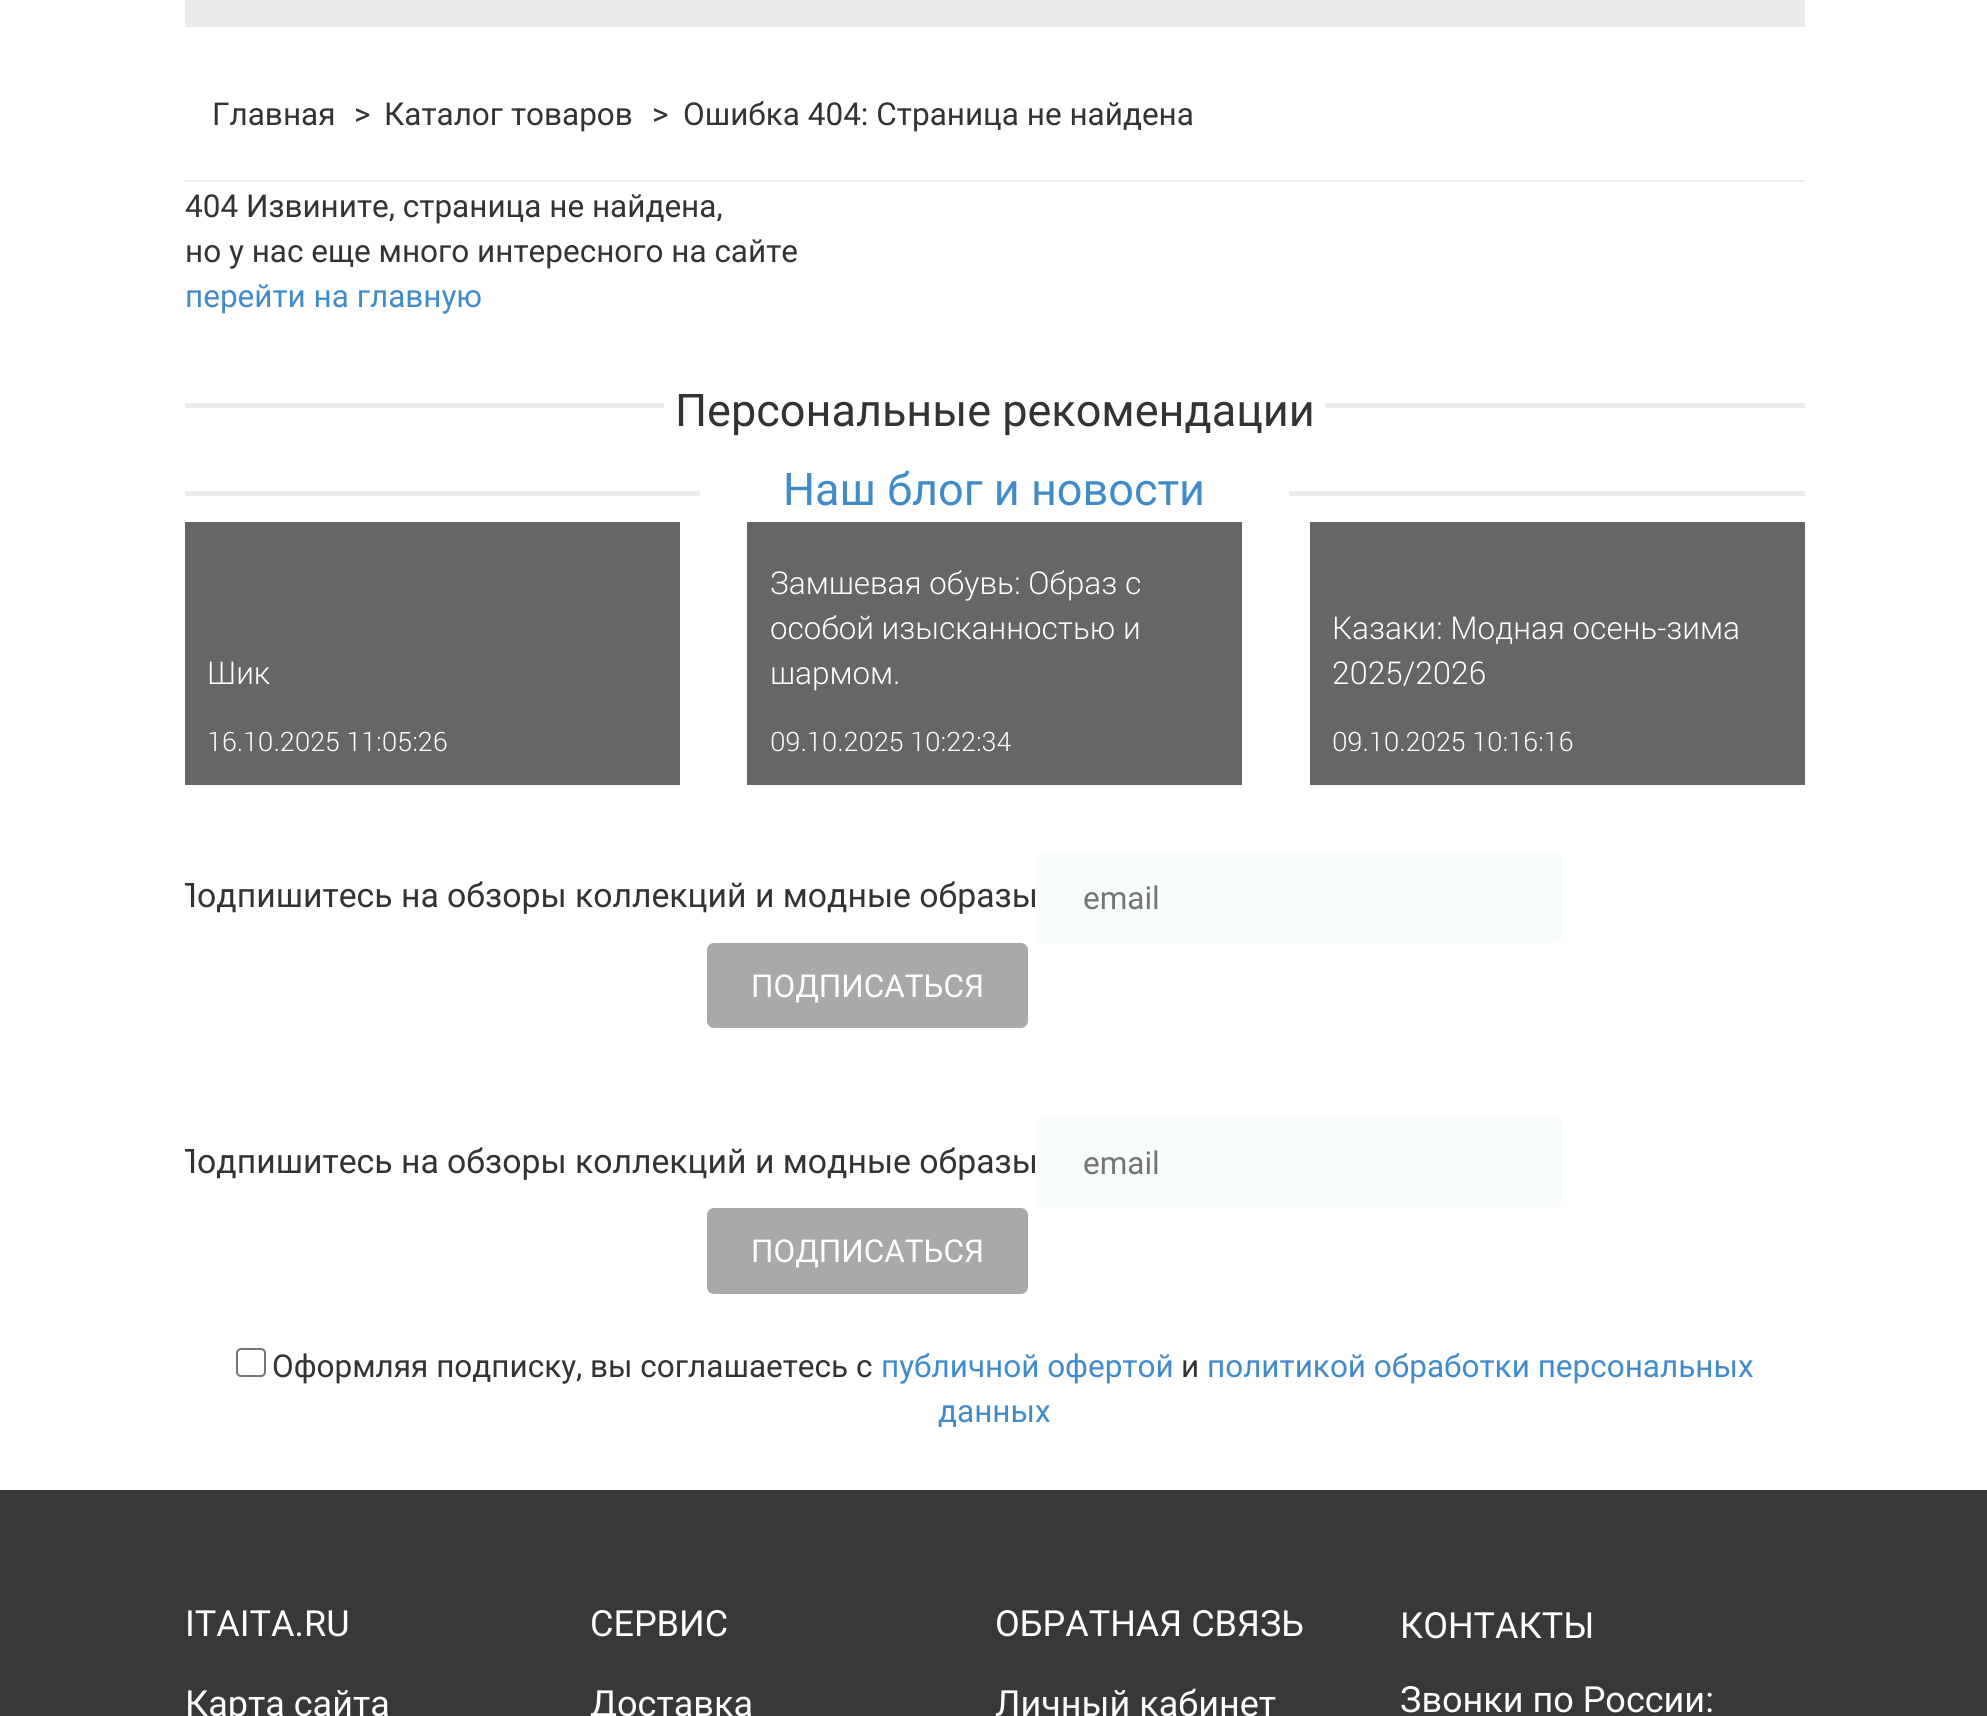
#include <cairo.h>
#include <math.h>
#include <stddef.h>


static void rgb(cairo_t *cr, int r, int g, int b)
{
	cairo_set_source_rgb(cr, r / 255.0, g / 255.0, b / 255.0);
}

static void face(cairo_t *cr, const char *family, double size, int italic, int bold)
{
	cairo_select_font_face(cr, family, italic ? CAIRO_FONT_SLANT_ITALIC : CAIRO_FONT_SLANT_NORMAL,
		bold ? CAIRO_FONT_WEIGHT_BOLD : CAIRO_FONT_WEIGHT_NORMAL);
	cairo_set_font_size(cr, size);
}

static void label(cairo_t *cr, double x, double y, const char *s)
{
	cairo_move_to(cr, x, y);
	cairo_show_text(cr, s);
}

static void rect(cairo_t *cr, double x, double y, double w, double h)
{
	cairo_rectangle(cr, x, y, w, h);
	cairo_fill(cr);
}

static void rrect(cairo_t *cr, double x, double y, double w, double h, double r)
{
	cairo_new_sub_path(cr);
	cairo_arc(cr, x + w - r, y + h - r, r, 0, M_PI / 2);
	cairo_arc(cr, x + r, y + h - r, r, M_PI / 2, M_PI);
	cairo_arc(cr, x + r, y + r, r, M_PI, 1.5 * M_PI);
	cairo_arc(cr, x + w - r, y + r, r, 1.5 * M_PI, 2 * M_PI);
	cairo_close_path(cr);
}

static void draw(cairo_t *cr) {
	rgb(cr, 255, 255, 255);
	cairo_paint(cr);
	rgb(cr, 235, 235, 235);
	rect(cr, 185, 0, 1620, 27);
	rgb(cr, 237, 237, 237);
	rect(cr, 185, 180, 1620, 2);
	face(cr, "Roboto", 31.5, 0, 0);
	rgb(cr, 51, 51, 51);
	label(cr, 212, 125, "Главная");
	label(cr, 354, 125, ">");
	label(cr, 384, 125, "Каталог товаров");
	label(cr, 652, 125, ">");
	label(cr, 683, 125, "Ошибка 404: Страница не найдена");
	label(cr, 185, 217, "404 Извините, страница не найдена,");
	label(cr, 185, 262, "но у нас еще много интересного на сайте");
	rgb(cr, 66, 139, 202);
	label(cr, 185, 307, "перейти на главную");
	rgb(cr, 235, 235, 235);
	rect(cr, 185, 403, 479, 5);
	face(cr, "Roboto", 45, 0, 0);
	rgb(cr, 51, 51, 51);
	label(cr, 675, 426, "Персональные рекомендации");
	rgb(cr, 235, 235, 235);
	rect(cr, 1325, 403, 480, 5);
	rect(cr, 185, 491, 515, 5);
	rgb(cr, 66, 139, 202);
	label(cr, 783, 505, "Наш блог и новости");
	rgb(cr, 235, 235, 235);
	rect(cr, 1289, 491, 516, 5);
	rgb(cr, 102, 102, 102);
	rect(cr, 185, 522, 495, 263);
	face(cr, "Roboto Light", 31.5, 0, 0);
	rgb(cr, 255, 255, 255);
	label(cr, 207, 684, "Шик");
	face(cr, "Roboto Light", 26.75, 0, 0);
	label(cr, 207, 751, "16.10.2025 11:05:26");
	rgb(cr, 102, 102, 102);
	rect(cr, 747, 522, 495, 263);
	face(cr, "Roboto Light", 31.5, 0, 0);
	rgb(cr, 255, 255, 255);
	label(cr, 770, 594, "Замшевая обувь: Образ с");
	label(cr, 770, 639, "особой изысканностью и");
	label(cr, 770, 684, "шармом.");
	face(cr, "Roboto Light", 26.75, 0, 0);
	label(cr, 770, 751, "09.10.2025 10:22:34");
	rgb(cr, 102, 102, 102);
	rect(cr, 1310, 522, 495, 263);
	face(cr, "Roboto Light", 31.5, 0, 0);
	rgb(cr, 255, 255, 255);
	label(cr, 1332, 639, "Казаки: Модная осень-зима");
	label(cr, 1332, 684, "2025/2026");
	face(cr, "Roboto Light", 26.75, 0, 0);
	label(cr, 1332, 751, "09.10.2025 10:16:16");
	cairo_save(cr);
	cairo_rectangle(cr, 185, 830, 1620, 221);
	cairo_clip(cr);
	face(cr, "Roboto", 33.75, 0, 0);
	rgb(cr, 51, 51, 51);
	label(cr, 173, 907, "Подпишитесь на обзоры коллекций и модные образы");
	cairo_restore(cr);
	rgb(cr, 249, 252, 253);
	rrect(cr, 1037, 853, 525, 90, 7);
	cairo_fill(cr);
	face(cr, "Roboto", 31.5, 0, 0);
	rgb(cr, 117, 117, 117);
	label(cr, 1083, 909, "email");
	rgb(cr, 168, 169, 170);
	rrect(cr, 707, 943, 321, 85, 7);
	cairo_fill(cr);
	rgb(cr, 255, 255, 255);
	label(cr, 751, 997, "ПОДПИСАТЬСЯ");
	cairo_save(cr);
	cairo_rectangle(cr, 185, 1096, 1620, 220);
	cairo_clip(cr);
	face(cr, "Roboto", 33.75, 0, 0);
	rgb(cr, 51, 51, 51);
	label(cr, 173, 1173, "Подпишитесь на обзоры коллекций и модные образы");
	cairo_restore(cr);
	rgb(cr, 249, 252, 253);
	rrect(cr, 1037, 1118, 525, 90, 7);
	cairo_fill(cr);
	rgb(cr, 117, 117, 117);
	label(cr, 1083, 1174, "email");
	rgb(cr, 168, 169, 170);
	rrect(cr, 707, 1208, 321, 86, 7);
	cairo_fill(cr);
	rgb(cr, 255, 255, 255);
	label(cr, 751, 1262, "ПОДПИСАТЬСЯ");
	rrect(cr, 237, 1349, 28, 27, 4);
	rgb(cr, 118, 118, 118);
	cairo_stroke(cr);
	rgb(cr, 51, 51, 51);
	label(cr, 272, 1377, "Оформляя подписку, вы соглашаетесь с");
	rgb(cr, 66, 139, 202);
	label(cr, 881, 1377, "публичной офертой");
	rgb(cr, 51, 51, 51);
	label(cr, 1181, 1377, "и");
	rgb(cr, 66, 139, 202);
	label(cr, 1207, 1377, "политикой обработки персональных");
	label(cr, 938, 1422, "данных");
	rgb(cr, 56, 56, 56);
	rect(cr, 0, 1490, 1987, 226);
	face(cr, "Roboto", 36, 0, 0);
	rgb(cr, 255, 255, 255);
	label(cr, 185, 1636, "ITAITA.RU");
	label(cr, 185, 1716, "Карта сайта");
	label(cr, 590, 1636, "СЕРВИС");
	label(cr, 590, 1716, "Доставка");
	label(cr, 995, 1636, "ОБРАТНАЯ СВЯЗЬ");
	label(cr, 995, 1716, "Личный кабинет");
	label(cr, 1400, 1638, "КОНТАКТЫ");
	label(cr, 1400, 1712, "Звонки по России:");
}

int main(void) {
	cairo_surface_t *surface = cairo_image_surface_create(CAIRO_FORMAT_RGB24, 1987, 1716);
	cairo_t *cr = cairo_create(surface);
	cairo_font_options_t *options = cairo_font_options_create();
	cairo_font_options_set_hint_metrics(options, CAIRO_HINT_METRICS_OFF);
	cairo_font_options_set_hint_style(options, CAIRO_HINT_STYLE_NONE);
	cairo_set_font_options(cr, options);
	cairo_set_miter_limit(cr, 4);
	draw(cr);
	cairo_surface_write_to_png(surface, "render.png");
	cairo_font_options_destroy(options);
	cairo_destroy(cr);
	cairo_surface_destroy(surface);
	return 0;
}
